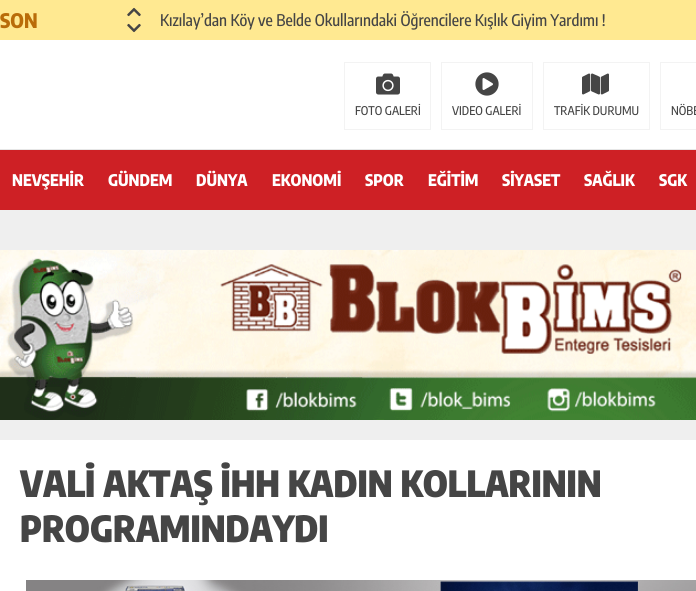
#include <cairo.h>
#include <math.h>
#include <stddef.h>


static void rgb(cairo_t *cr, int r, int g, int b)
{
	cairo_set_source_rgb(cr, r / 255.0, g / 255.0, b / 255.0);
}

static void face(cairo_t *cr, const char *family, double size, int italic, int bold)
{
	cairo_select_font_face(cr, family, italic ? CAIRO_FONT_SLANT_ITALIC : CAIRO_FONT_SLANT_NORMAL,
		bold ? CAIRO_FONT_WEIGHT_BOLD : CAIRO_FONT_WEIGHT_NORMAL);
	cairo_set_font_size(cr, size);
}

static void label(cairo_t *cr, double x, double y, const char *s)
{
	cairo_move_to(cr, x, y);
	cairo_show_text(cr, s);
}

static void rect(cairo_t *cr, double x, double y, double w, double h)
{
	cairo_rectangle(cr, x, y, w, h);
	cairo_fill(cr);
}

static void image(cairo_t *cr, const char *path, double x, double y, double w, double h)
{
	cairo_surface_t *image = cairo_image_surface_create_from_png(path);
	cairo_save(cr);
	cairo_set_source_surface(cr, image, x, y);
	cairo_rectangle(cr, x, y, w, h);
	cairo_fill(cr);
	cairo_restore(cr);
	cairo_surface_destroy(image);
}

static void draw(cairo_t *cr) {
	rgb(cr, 239, 239, 239);
	cairo_paint(cr);
	rgb(cr, 255, 233, 145);
	rect(cr, 0, 0, 696, 40);
	face(cr, "Encode Sans Condensed ExtraBold", 20, 0, 0);
	rgb(cr, 185, 108, 9);
	label(cr, 0, 28, "SON");
	image(cr, "image0.png", 127, 7, 14, 10);
	image(cr, "image1.png", 127, 23, 14, 10);
	face(cr, "Encode Sans Condensed Medium", 16, 0, 0);
	rgb(cr, 69, 69, 69);
	label(cr, 160, 26, "Kızılay’dan Köy ve Belde Okullarındaki Öğrencilere Kışlık Giyim Yardımı !");
	rgb(cr, 255, 255, 255);
	rect(cr, 0, 40, 696, 109);
	rgb(cr, 230, 230, 230);
	rect(cr, 0, 149, 696, 1);
	image(cr, "image2.png", 376, 73, 24, 22);
	cairo_rectangle(cr, 344.5, 62.5, 86, 67);
	rgb(cr, 243, 243, 243);
	cairo_set_line_width(cr, 1);
	cairo_stroke(cr);
	face(cr, "Encode Sans Condensed Medium", 12, 0, 0);
	rgb(cr, 69, 69, 69);
	label(cr, 355, 115, "FOTO GALERİ");
	image(cr, "image3.png", 475, 72, 24, 24);
	cairo_rectangle(cr, 441.5, 62.5, 91, 67);
	rgb(cr, 243, 243, 243);
	cairo_stroke(cr);
	rgb(cr, 69, 69, 69);
	label(cr, 452, 115, "VIDEO GALERİ");
	image(cr, "image4.png", 582, 73, 27, 22);
	cairo_rectangle(cr, 543.5, 62.5, 106, 67);
	rgb(cr, 243, 243, 243);
	cairo_stroke(cr);
	rgb(cr, 69, 69, 69);
	label(cr, 554, 115, "TRAFİK DURUMU");
	cairo_rectangle(cr, 660.5, 62.5, 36, 67);
	rgb(cr, 243, 243, 243);
	cairo_stroke(cr);
	rgb(cr, 69, 69, 69);
	label(cr, 671, 115, "NÖBE");
	rgb(cr, 206, 32, 37);
	rect(cr, 0, 150, 696, 60);
	face(cr, "Encode Sans Condensed ExtraBold", 16, 0, 0);
	rgb(cr, 255, 255, 255);
	label(cr, 12, 186, "NEVŞEHİR");
	label(cr, 108, 186, "GÜNDEM");
	label(cr, 196, 186, "DÜNYA");
	label(cr, 272, 186, "EKONOMİ");
	label(cr, 365, 186, "SPOR");
	label(cr, 428, 186, "EĞİTİM");
	label(cr, 502, 186, "SİYASET");
	label(cr, 584, 186, "SAĞLIK");
	label(cr, 659, 186, "SGK");
	image(cr, "image5.png", 0, 250, 696, 170);
	rect(cr, 0, 440, 696, 151);
	face(cr, "Encode Sans Condensed Black", 36, 0, 0);
	rgb(cr, 69, 69, 69);
	label(cr, 20, 497, "VALİ AKTAŞ İHH KADIN KOLLARININ");
	label(cr, 20, 542, "PROGRAMINDAYDI");
	image(cr, "image6.png", 26, 580, 670, 11);
}

int main(void) {
	cairo_surface_t *surface = cairo_image_surface_create(CAIRO_FORMAT_RGB24, 696, 591);
	cairo_t *cr = cairo_create(surface);
	cairo_font_options_t *options = cairo_font_options_create();
	cairo_font_options_set_hint_metrics(options, CAIRO_HINT_METRICS_OFF);
	cairo_font_options_set_hint_style(options, CAIRO_HINT_STYLE_NONE);
	cairo_set_font_options(cr, options);
	cairo_set_miter_limit(cr, 4);
	draw(cr);
	cairo_surface_write_to_png(surface, "render.png");
	cairo_font_options_destroy(options);
	cairo_destroy(cr);
	cairo_surface_destroy(surface);
	return 0;
}
